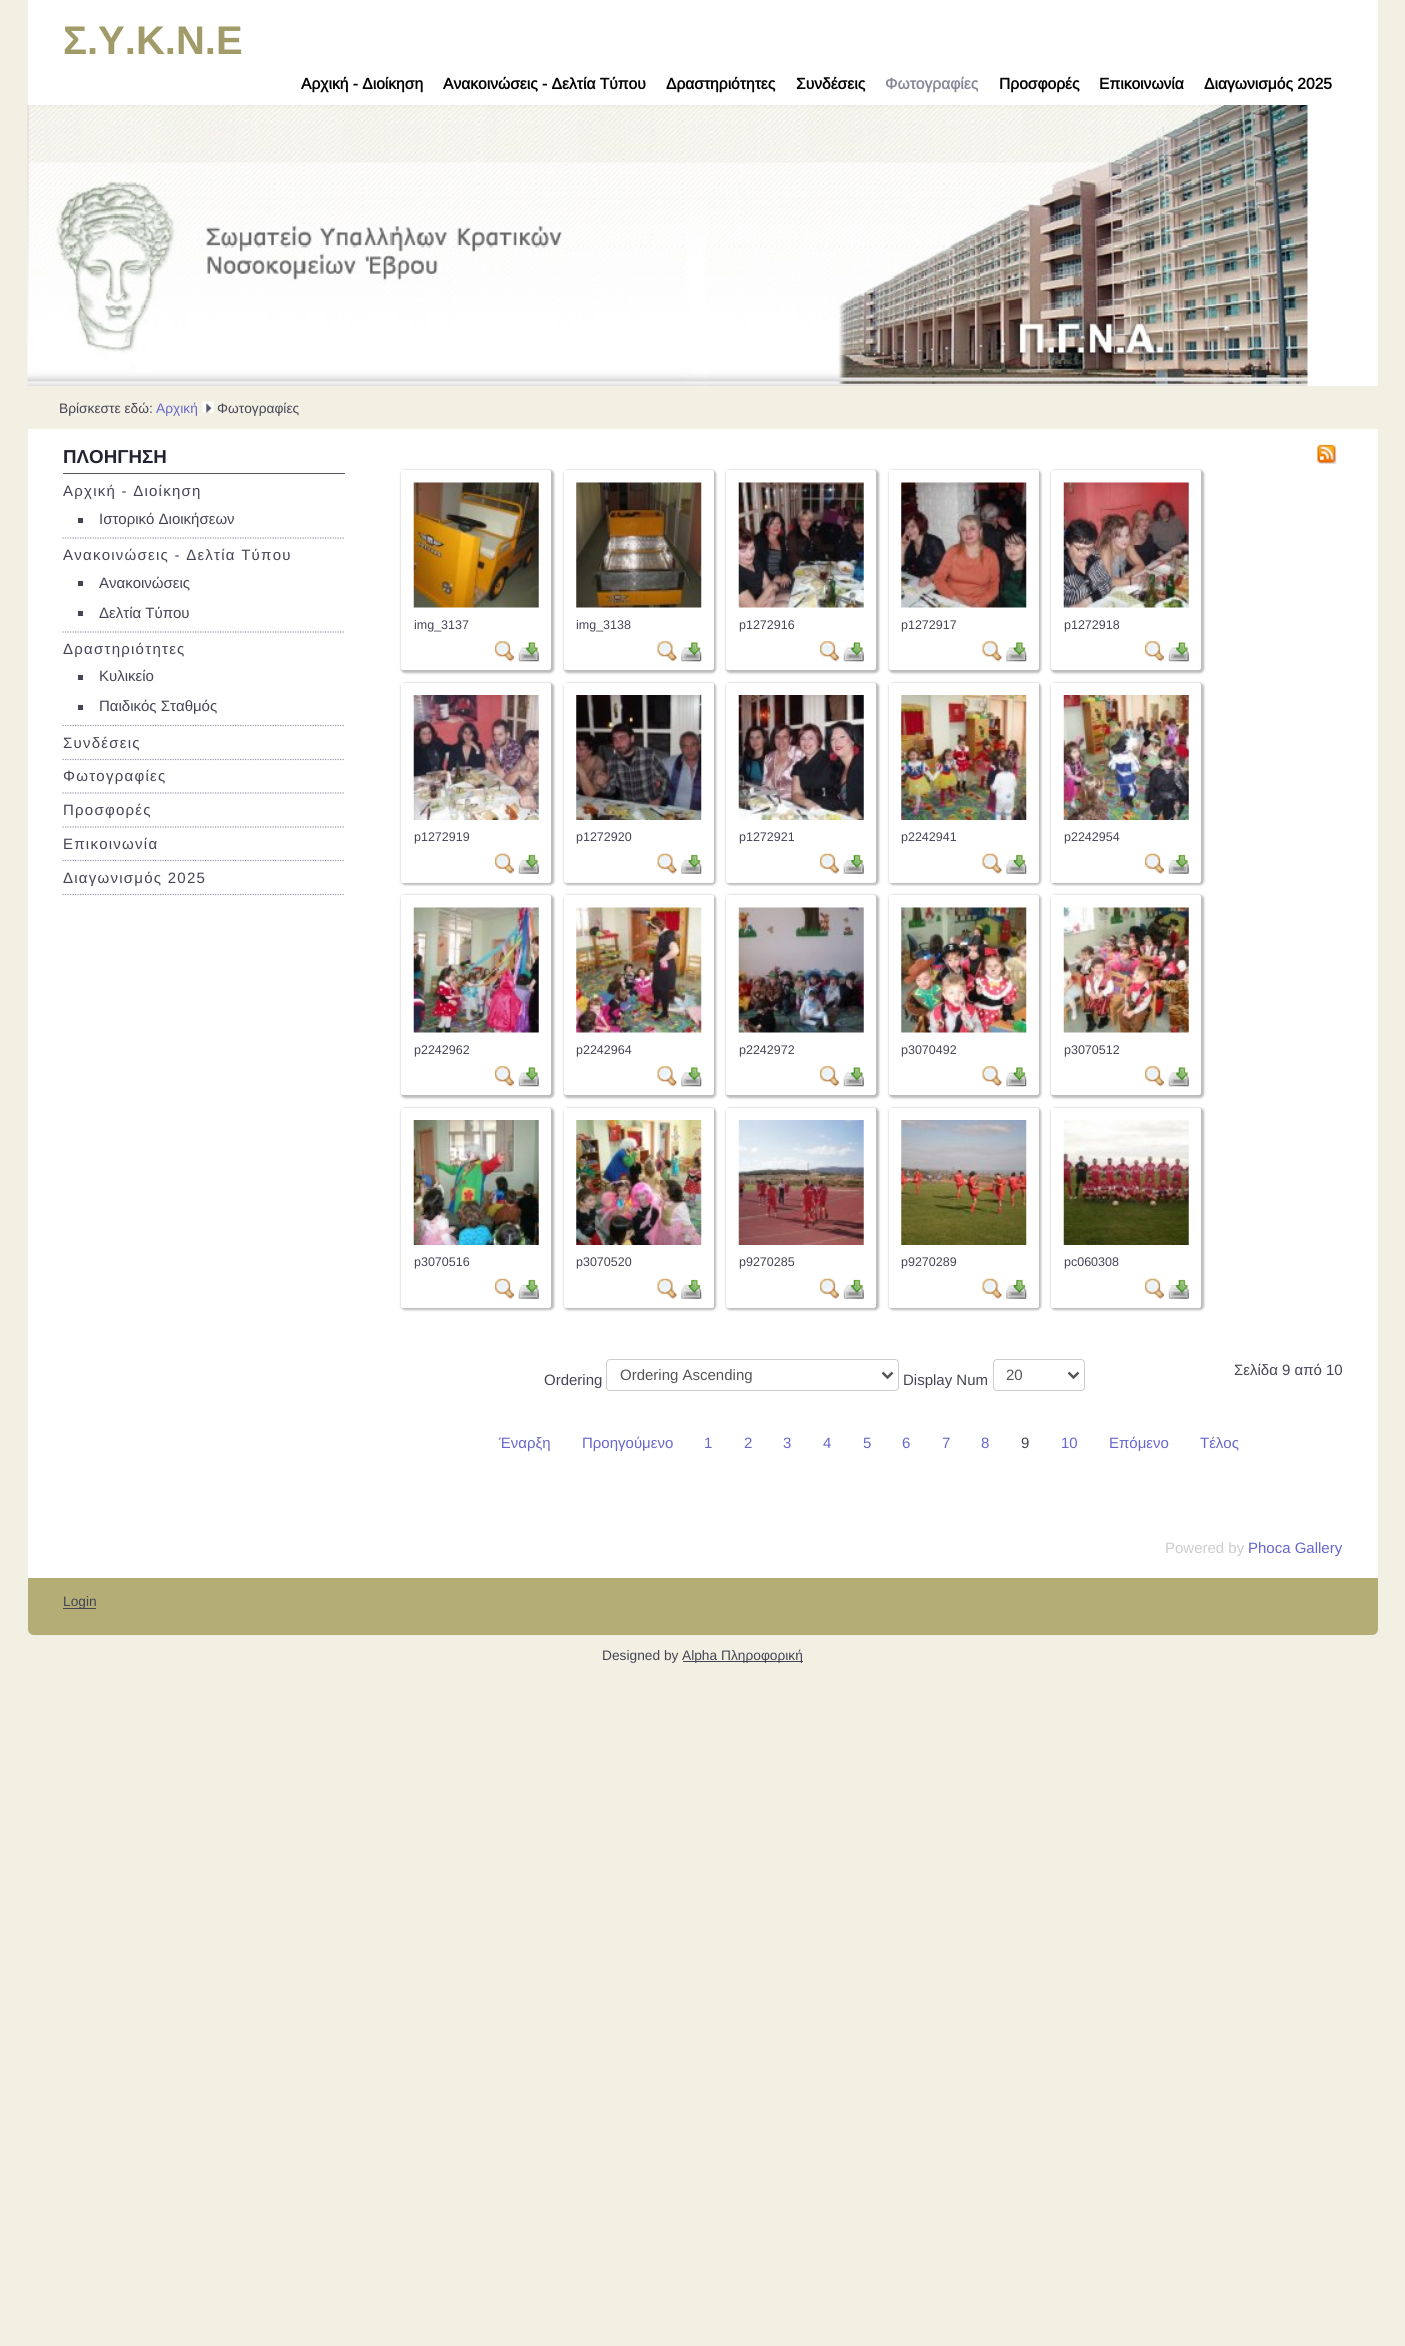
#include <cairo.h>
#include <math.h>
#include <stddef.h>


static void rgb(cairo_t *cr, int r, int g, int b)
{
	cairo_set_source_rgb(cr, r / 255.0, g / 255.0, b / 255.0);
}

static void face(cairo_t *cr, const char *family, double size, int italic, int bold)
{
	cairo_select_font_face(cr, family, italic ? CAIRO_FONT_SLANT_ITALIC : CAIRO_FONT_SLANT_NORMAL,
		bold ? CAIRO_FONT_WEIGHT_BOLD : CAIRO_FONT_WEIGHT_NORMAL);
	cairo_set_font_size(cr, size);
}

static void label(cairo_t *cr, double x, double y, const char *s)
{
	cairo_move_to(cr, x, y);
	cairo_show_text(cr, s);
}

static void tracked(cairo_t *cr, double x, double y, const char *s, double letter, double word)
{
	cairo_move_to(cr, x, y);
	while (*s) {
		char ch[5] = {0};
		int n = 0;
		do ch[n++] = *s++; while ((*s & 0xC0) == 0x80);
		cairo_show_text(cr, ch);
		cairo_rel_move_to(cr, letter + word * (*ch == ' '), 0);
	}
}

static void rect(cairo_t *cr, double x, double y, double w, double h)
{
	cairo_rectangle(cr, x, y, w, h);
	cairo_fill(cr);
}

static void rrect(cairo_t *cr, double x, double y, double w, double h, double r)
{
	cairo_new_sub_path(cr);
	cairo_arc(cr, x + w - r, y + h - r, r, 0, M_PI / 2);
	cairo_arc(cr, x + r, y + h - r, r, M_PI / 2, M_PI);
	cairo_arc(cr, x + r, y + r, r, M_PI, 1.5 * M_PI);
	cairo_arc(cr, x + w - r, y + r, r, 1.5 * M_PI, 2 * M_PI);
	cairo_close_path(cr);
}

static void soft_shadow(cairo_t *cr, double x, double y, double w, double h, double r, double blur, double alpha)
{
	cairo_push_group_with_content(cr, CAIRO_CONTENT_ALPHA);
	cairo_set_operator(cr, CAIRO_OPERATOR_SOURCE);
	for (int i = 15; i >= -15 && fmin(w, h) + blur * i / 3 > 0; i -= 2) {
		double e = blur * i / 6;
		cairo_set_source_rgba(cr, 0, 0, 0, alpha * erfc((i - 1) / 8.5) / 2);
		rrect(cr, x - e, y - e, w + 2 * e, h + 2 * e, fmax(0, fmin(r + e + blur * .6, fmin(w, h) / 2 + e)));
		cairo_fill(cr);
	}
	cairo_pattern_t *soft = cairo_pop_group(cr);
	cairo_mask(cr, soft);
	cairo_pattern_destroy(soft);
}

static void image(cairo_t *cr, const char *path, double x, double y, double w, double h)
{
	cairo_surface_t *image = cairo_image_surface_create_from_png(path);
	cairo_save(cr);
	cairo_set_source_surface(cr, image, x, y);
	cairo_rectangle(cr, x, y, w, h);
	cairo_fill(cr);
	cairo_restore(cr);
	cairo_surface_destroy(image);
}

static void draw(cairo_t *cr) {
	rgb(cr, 242, 240, 227);
	cairo_paint(cr);
	rgb(cr, 255, 255, 255);
	rect(cr, 28, 0, 1350, 105);
	face(cr, "Liberation Sans", 40, 0, 1);
	rgb(cr, 161, 154, 105);
	label(cr, 63, 54, "Σ.Υ.Κ.Ν.Ε");
	face(cr, "Arimo", 15.6, 0, 1);
	rgb(cr, 0, 0, 0);
	label(cr, 301, 89, "Αρχική - Διοίκηση");
	label(cr, 443, 89, "Ανακοινώσεις - Δελτία Τύπου");
	label(cr, 666, 89, "Δραστηριότητες");
	label(cr, 796, 89, "Συνδέσεις");
	rgb(cr, 136, 136, 153);
	label(cr, 885, 89, "Φωτογραφίες");
	rgb(cr, 0, 0, 0);
	label(cr, 999, 89, "Προσφορές");
	label(cr, 1099, 89, "Επικοινωνία");
	label(cr, 1204, 89, "Διαγωνισμός 2025");
	rgb(cr, 255, 255, 255);
	rect(cr, 1307, 105, 71, 281);
	image(cr, "image0.png", 27, 105, 1281, 282);
	rect(cr, 28, 429, 1350, 1149);
	rgb(cr, 242, 240, 227);
	rect(cr, 28, 386, 1279, 1);
	face(cr, "Liberation Sans", 13.75, 0, 0);
	rgb(cr, 68, 68, 85);
	label(cr, 59, 413, "Βρίσκεστε εδώ:");
	rgb(cr, 102, 102, 204);
	label(cr, 156, 413, "Αρχική");
	image(cr, "image1.png", 202, 401, 12, 12);
	rgb(cr, 68, 68, 85);
	label(cr, 217, 413, "Φωτογραφίες");
	rgb(cr, 85, 85, 102);
	rect(cr, 63, 473, 282, 1);
	face(cr, "Liberation Sans", 18.75, 0, 1);
	rgb(cr, 34, 34, 51);
	label(cr, 63, 463, "ΠΛΟΗΓΗΣΗ");
	cairo_new_path(cr);
	cairo_move_to(cr, 62.5, 538);
	cairo_line_to(cr, 345, 538);
	rgb(cr, 153, 153, 170);
	cairo_set_line_width(cr, 1.2);
	cairo_set_dash(cr, (double[]){1.25, 1.25}, 2, 0);
	cairo_stroke(cr);
	face(cr, "Liberation Sans", 15, 0, 0);
	rgb(cr, 68, 68, 85);
	tracked(cr, 63, 496, "Αρχική - Διοίκηση", 1.25, 0);
	rect(cr, 78, 518, 5, 5);
	label(cr, 99, 524, "Ιστορικό Διοικήσεων");
	cairo_new_path(cr);
	cairo_move_to(cr, 62.5, 632);
	cairo_line_to(cr, 345, 632);
	rgb(cr, 153, 153, 170);
	cairo_stroke(cr);
	rgb(cr, 68, 68, 85);
	tracked(cr, 63, 560, "Ανακοινώσεις - Δελτία Τύπου", 1.25, 0);
	rect(cr, 78, 581, 5, 5);
	label(cr, 99, 588, "Ανακοινώσεις");
	rect(cr, 78, 611, 5, 5);
	label(cr, 99, 618, "Δελτία Τύπου");
	cairo_new_path(cr);
	cairo_move_to(cr, 62.5, 725.5);
	cairo_line_to(cr, 345, 725.5);
	rgb(cr, 153, 153, 170);
	cairo_stroke(cr);
	rgb(cr, 68, 68, 85);
	tracked(cr, 63, 654, "Δραστηριότητες", 1.25, 0);
	rect(cr, 78, 675, 5, 5);
	label(cr, 99, 681, "Κυλικείο");
	rect(cr, 78, 705, 5, 5);
	label(cr, 99, 711, "Παιδικός Σταθμός");
	cairo_new_path(cr);
	cairo_move_to(cr, 62.5, 759.5);
	cairo_line_to(cr, 345, 759.5);
	rgb(cr, 153, 153, 170);
	cairo_stroke(cr);
	rgb(cr, 68, 68, 85);
	tracked(cr, 63, 748, "Συνδέσεις", 1.25, 0);
	cairo_new_path(cr);
	cairo_move_to(cr, 62.5, 793);
	cairo_line_to(cr, 345, 793);
	rgb(cr, 153, 153, 170);
	cairo_stroke(cr);
	rgb(cr, 68, 68, 85);
	tracked(cr, 63, 781, "Φωτογραφίες", 1.25, 0);
	cairo_new_path(cr);
	cairo_move_to(cr, 62.5, 827);
	cairo_line_to(cr, 345, 827);
	rgb(cr, 153, 153, 170);
	cairo_stroke(cr);
	rgb(cr, 68, 68, 85);
	tracked(cr, 63, 815, "Προσφορές", 1.25, 0);
	cairo_new_path(cr);
	cairo_move_to(cr, 62.5, 860.5);
	cairo_line_to(cr, 345, 860.5);
	rgb(cr, 153, 153, 170);
	cairo_stroke(cr);
	rgb(cr, 68, 68, 85);
	tracked(cr, 63, 849, "Επικοινωνία", 1.25, 0);
	cairo_new_path(cr);
	cairo_move_to(cr, 62.5, 894.5);
	cairo_line_to(cr, 345, 894.5);
	rgb(cr, 153, 153, 170);
	cairo_stroke(cr);
	rgb(cr, 68, 68, 85);
	tracked(cr, 63, 883, "Διαγωνισμός 2025", 1.25, 0);
	image(cr, "image2.png", 1317, 444, 20, 20);
	cairo_save(cr);
	cairo_set_fill_rule(cr, CAIRO_FILL_RULE_EVEN_ODD);
	cairo_new_path(cr);
	cairo_move_to(cr, 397, 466);
	cairo_line_to(cr, 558, 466);
	cairo_line_to(cr, 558, 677);
	cairo_line_to(cr, 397, 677);
	cairo_close_path(cr);
	cairo_move_to(cr, 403.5, 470);
	cairo_line_to(cr, 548.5, 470);
	cairo_curve_to(cr, 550, 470, 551, 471, 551, 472.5);
	cairo_line_to(cr, 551, 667.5);
	cairo_curve_to(cr, 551, 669, 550, 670, 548.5, 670);
	cairo_line_to(cr, 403.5, 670);
	cairo_curve_to(cr, 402, 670, 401, 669, 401, 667.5);
	cairo_line_to(cr, 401, 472.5);
	cairo_curve_to(cr, 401, 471, 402, 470, 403.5, 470);
	cairo_close_path(cr);
	cairo_clip(cr);
	rgb(cr, 120, 120, 120);
	soft_shadow(cr, 401, 470, 153, 203, 4, 1, 0.5);
	cairo_restore(cr);
	image(cr, "image3.png", 413, 482, 126, 126);
	face(cr, "Liberation Sans", 12.5, 0, 0);
	label(cr, 414, 629, "img_3137");
	image(cr, "image4.png", 495, 641, 20, 21);
	image(cr, "image5.png", 518, 642, 21, 20);
	cairo_save(cr);
	cairo_set_fill_rule(cr, CAIRO_FILL_RULE_EVEN_ODD);
	cairo_new_path(cr);
	cairo_move_to(cr, 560, 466);
	cairo_line_to(cr, 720, 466);
	cairo_line_to(cr, 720, 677);
	cairo_line_to(cr, 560, 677);
	cairo_close_path(cr);
	cairo_move_to(cr, 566.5, 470);
	cairo_line_to(cr, 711.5, 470);
	cairo_curve_to(cr, 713, 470, 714, 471, 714, 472.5);
	cairo_line_to(cr, 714, 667.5);
	cairo_curve_to(cr, 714, 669, 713, 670, 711.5, 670);
	cairo_line_to(cr, 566.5, 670);
	cairo_curve_to(cr, 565, 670, 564, 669, 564, 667.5);
	cairo_line_to(cr, 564, 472.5);
	cairo_curve_to(cr, 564, 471, 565, 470, 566.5, 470);
	cairo_close_path(cr);
	cairo_clip(cr);
	rgb(cr, 120, 120, 120);
	soft_shadow(cr, 564, 470, 152, 203, 4, 1, 0.5);
	cairo_restore(cr);
	image(cr, "image6.png", 576, 482, 126, 126);
	label(cr, 576, 629, "img_3138");
	image(cr, "image7.png", 657, 641, 20, 21);
	image(cr, "image8.png", 681, 642, 21, 20);
	cairo_save(cr);
	cairo_set_fill_rule(cr, CAIRO_FILL_RULE_EVEN_ODD);
	cairo_new_path(cr);
	cairo_move_to(cr, 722, 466);
	cairo_line_to(cr, 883, 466);
	cairo_line_to(cr, 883, 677);
	cairo_line_to(cr, 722, 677);
	cairo_close_path(cr);
	cairo_move_to(cr, 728.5, 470);
	cairo_line_to(cr, 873.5, 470);
	cairo_curve_to(cr, 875, 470, 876, 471, 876, 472.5);
	cairo_line_to(cr, 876, 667.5);
	cairo_curve_to(cr, 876, 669, 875, 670, 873.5, 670);
	cairo_line_to(cr, 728.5, 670);
	cairo_curve_to(cr, 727, 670, 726, 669, 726, 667.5);
	cairo_line_to(cr, 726, 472.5);
	cairo_curve_to(cr, 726, 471, 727, 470, 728.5, 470);
	cairo_close_path(cr);
	cairo_clip(cr);
	rgb(cr, 120, 120, 120);
	soft_shadow(cr, 726, 470, 153, 203, 4, 1, 0.5);
	cairo_restore(cr);
	image(cr, "image9.png", 738, 482, 126, 126);
	label(cr, 739, 629, "p1272916");
	image(cr, "image10.png", 820, 641, 20, 21);
	image(cr, "image5.png", 843, 642, 21, 20);
	cairo_save(cr);
	cairo_set_fill_rule(cr, CAIRO_FILL_RULE_EVEN_ODD);
	cairo_new_path(cr);
	cairo_move_to(cr, 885, 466);
	cairo_line_to(cr, 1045, 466);
	cairo_line_to(cr, 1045, 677);
	cairo_line_to(cr, 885, 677);
	cairo_close_path(cr);
	cairo_move_to(cr, 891.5, 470);
	cairo_line_to(cr, 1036.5, 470);
	cairo_curve_to(cr, 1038, 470, 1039, 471, 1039, 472.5);
	cairo_line_to(cr, 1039, 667.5);
	cairo_curve_to(cr, 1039, 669, 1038, 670, 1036.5, 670);
	cairo_line_to(cr, 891.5, 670);
	cairo_curve_to(cr, 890, 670, 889, 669, 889, 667.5);
	cairo_line_to(cr, 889, 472.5);
	cairo_curve_to(cr, 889, 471, 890, 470, 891.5, 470);
	cairo_close_path(cr);
	cairo_clip(cr);
	rgb(cr, 120, 120, 120);
	soft_shadow(cr, 889, 470, 152, 203, 4, 1, 0.5);
	cairo_restore(cr);
	image(cr, "image11.png", 901, 482, 126, 126);
	label(cr, 901, 629, "p1272917");
	image(cr, "image12.png", 982, 641, 20, 21);
	image(cr, "image13.png", 1006, 642, 21, 20);
	cairo_save(cr);
	cairo_set_fill_rule(cr, CAIRO_FILL_RULE_EVEN_ODD);
	cairo_new_path(cr);
	cairo_move_to(cr, 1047, 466);
	cairo_line_to(cr, 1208, 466);
	cairo_line_to(cr, 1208, 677);
	cairo_line_to(cr, 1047, 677);
	cairo_close_path(cr);
	cairo_move_to(cr, 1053.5, 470);
	cairo_line_to(cr, 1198.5, 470);
	cairo_curve_to(cr, 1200, 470, 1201, 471, 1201, 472.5);
	cairo_line_to(cr, 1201, 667.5);
	cairo_curve_to(cr, 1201, 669, 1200, 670, 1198.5, 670);
	cairo_line_to(cr, 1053.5, 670);
	cairo_curve_to(cr, 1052, 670, 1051, 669, 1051, 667.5);
	cairo_line_to(cr, 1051, 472.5);
	cairo_curve_to(cr, 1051, 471, 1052, 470, 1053.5, 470);
	cairo_close_path(cr);
	cairo_clip(cr);
	rgb(cr, 120, 120, 120);
	soft_shadow(cr, 1051, 470, 153, 203, 4, 1, 0.5);
	cairo_restore(cr);
	image(cr, "image14.png", 1063, 482, 126, 126);
	label(cr, 1064, 629, "p1272918");
	image(cr, "image10.png", 1145, 641, 20, 21);
	image(cr, "image5.png", 1168, 642, 21, 20);
	cairo_save(cr);
	cairo_set_fill_rule(cr, CAIRO_FILL_RULE_EVEN_ODD);
	cairo_new_path(cr);
	cairo_move_to(cr, 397, 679);
	cairo_line_to(cr, 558, 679);
	cairo_line_to(cr, 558, 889);
	cairo_line_to(cr, 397, 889);
	cairo_close_path(cr);
	cairo_move_to(cr, 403.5, 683);
	cairo_line_to(cr, 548.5, 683);
	cairo_curve_to(cr, 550, 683, 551, 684, 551, 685.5);
	cairo_line_to(cr, 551, 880.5);
	cairo_curve_to(cr, 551, 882, 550, 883, 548.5, 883);
	cairo_line_to(cr, 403.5, 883);
	cairo_curve_to(cr, 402, 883, 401, 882, 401, 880.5);
	cairo_line_to(cr, 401, 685.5);
	cairo_curve_to(cr, 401, 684, 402, 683, 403.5, 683);
	cairo_close_path(cr);
	cairo_clip(cr);
	rgb(cr, 120, 120, 120);
	soft_shadow(cr, 401, 683, 153, 202, 4, 1, 0.5);
	cairo_restore(cr);
	image(cr, "image15.png", 413, 695, 126, 125);
	label(cr, 414, 841, "p1272919");
	image(cr, "image16.png", 495, 853, 20, 21);
	image(cr, "image17.png", 518, 854, 21, 20);
	cairo_save(cr);
	cairo_set_fill_rule(cr, CAIRO_FILL_RULE_EVEN_ODD);
	cairo_new_path(cr);
	cairo_move_to(cr, 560, 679);
	cairo_line_to(cr, 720, 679);
	cairo_line_to(cr, 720, 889);
	cairo_line_to(cr, 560, 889);
	cairo_close_path(cr);
	cairo_move_to(cr, 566.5, 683);
	cairo_line_to(cr, 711.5, 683);
	cairo_curve_to(cr, 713, 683, 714, 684, 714, 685.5);
	cairo_line_to(cr, 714, 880.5);
	cairo_curve_to(cr, 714, 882, 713, 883, 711.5, 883);
	cairo_line_to(cr, 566.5, 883);
	cairo_curve_to(cr, 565, 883, 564, 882, 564, 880.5);
	cairo_line_to(cr, 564, 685.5);
	cairo_curve_to(cr, 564, 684, 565, 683, 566.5, 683);
	cairo_close_path(cr);
	cairo_clip(cr);
	rgb(cr, 120, 120, 120);
	soft_shadow(cr, 564, 683, 152, 202, 4, 1, 0.5);
	cairo_restore(cr);
	image(cr, "image18.png", 576, 695, 126, 125);
	label(cr, 576, 841, "p1272920");
	image(cr, "image19.png", 657, 853, 20, 21);
	image(cr, "image20.png", 681, 854, 21, 20);
	cairo_save(cr);
	cairo_set_fill_rule(cr, CAIRO_FILL_RULE_EVEN_ODD);
	cairo_new_path(cr);
	cairo_move_to(cr, 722, 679);
	cairo_line_to(cr, 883, 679);
	cairo_line_to(cr, 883, 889);
	cairo_line_to(cr, 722, 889);
	cairo_close_path(cr);
	cairo_move_to(cr, 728.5, 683);
	cairo_line_to(cr, 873.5, 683);
	cairo_curve_to(cr, 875, 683, 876, 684, 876, 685.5);
	cairo_line_to(cr, 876, 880.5);
	cairo_curve_to(cr, 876, 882, 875, 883, 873.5, 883);
	cairo_line_to(cr, 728.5, 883);
	cairo_curve_to(cr, 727, 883, 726, 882, 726, 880.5);
	cairo_line_to(cr, 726, 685.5);
	cairo_curve_to(cr, 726, 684, 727, 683, 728.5, 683);
	cairo_close_path(cr);
	cairo_clip(cr);
	rgb(cr, 120, 120, 120);
	soft_shadow(cr, 726, 683, 153, 202, 4, 1, 0.5);
	cairo_restore(cr);
	image(cr, "image21.png", 738, 695, 126, 125);
	label(cr, 739, 841, "p1272921");
	image(cr, "image22.png", 820, 853, 20, 21);
	image(cr, "image17.png", 843, 854, 21, 20);
	cairo_save(cr);
	cairo_set_fill_rule(cr, CAIRO_FILL_RULE_EVEN_ODD);
	cairo_new_path(cr);
	cairo_move_to(cr, 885, 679);
	cairo_line_to(cr, 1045, 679);
	cairo_line_to(cr, 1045, 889);
	cairo_line_to(cr, 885, 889);
	cairo_close_path(cr);
	cairo_move_to(cr, 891.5, 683);
	cairo_line_to(cr, 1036.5, 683);
	cairo_curve_to(cr, 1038, 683, 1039, 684, 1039, 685.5);
	cairo_line_to(cr, 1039, 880.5);
	cairo_curve_to(cr, 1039, 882, 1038, 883, 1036.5, 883);
	cairo_line_to(cr, 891.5, 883);
	cairo_curve_to(cr, 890, 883, 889, 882, 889, 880.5);
	cairo_line_to(cr, 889, 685.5);
	cairo_curve_to(cr, 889, 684, 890, 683, 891.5, 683);
	cairo_close_path(cr);
	cairo_clip(cr);
	rgb(cr, 120, 120, 120);
	soft_shadow(cr, 889, 683, 152, 202, 4, 1, 0.5);
	cairo_restore(cr);
	image(cr, "image23.png", 901, 695, 126, 125);
	label(cr, 901, 841, "p2242941");
	image(cr, "image24.png", 982, 853, 20, 21);
	image(cr, "image25.png", 1006, 854, 21, 20);
	cairo_save(cr);
	cairo_set_fill_rule(cr, CAIRO_FILL_RULE_EVEN_ODD);
	cairo_new_path(cr);
	cairo_move_to(cr, 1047, 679);
	cairo_line_to(cr, 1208, 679);
	cairo_line_to(cr, 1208, 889);
	cairo_line_to(cr, 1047, 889);
	cairo_close_path(cr);
	cairo_move_to(cr, 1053.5, 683);
	cairo_line_to(cr, 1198.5, 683);
	cairo_curve_to(cr, 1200, 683, 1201, 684, 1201, 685.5);
	cairo_line_to(cr, 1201, 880.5);
	cairo_curve_to(cr, 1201, 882, 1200, 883, 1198.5, 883);
	cairo_line_to(cr, 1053.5, 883);
	cairo_curve_to(cr, 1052, 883, 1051, 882, 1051, 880.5);
	cairo_line_to(cr, 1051, 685.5);
	cairo_curve_to(cr, 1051, 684, 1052, 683, 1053.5, 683);
	cairo_close_path(cr);
	cairo_clip(cr);
	rgb(cr, 120, 120, 120);
	soft_shadow(cr, 1051, 683, 153, 202, 4, 1, 0.5);
	cairo_restore(cr);
	image(cr, "image26.png", 1063, 695, 126, 125);
	label(cr, 1064, 841, "p2242954");
	image(cr, "image22.png", 1145, 853, 20, 21);
	image(cr, "image17.png", 1168, 854, 21, 20);
	cairo_save(cr);
	cairo_set_fill_rule(cr, CAIRO_FILL_RULE_EVEN_ODD);
	cairo_new_path(cr);
	cairo_move_to(cr, 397, 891);
	cairo_line_to(cr, 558, 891);
	cairo_line_to(cr, 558, 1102);
	cairo_line_to(cr, 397, 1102);
	cairo_close_path(cr);
	cairo_move_to(cr, 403.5, 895);
	cairo_line_to(cr, 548.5, 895);
	cairo_curve_to(cr, 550, 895, 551, 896, 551, 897.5);
	cairo_line_to(cr, 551, 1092.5);
	cairo_curve_to(cr, 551, 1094, 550, 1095, 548.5, 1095);
	cairo_line_to(cr, 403.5, 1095);
	cairo_curve_to(cr, 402, 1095, 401, 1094, 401, 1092.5);
	cairo_line_to(cr, 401, 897.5);
	cairo_curve_to(cr, 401, 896, 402, 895, 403.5, 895);
	cairo_close_path(cr);
	cairo_clip(cr);
	rgb(cr, 120, 120, 120);
	soft_shadow(cr, 401, 895, 153, 203, 4, 1, 0.5);
	cairo_restore(cr);
	image(cr, "image27.png", 413, 907, 126, 126);
	label(cr, 414, 1054, "p2242962");
	image(cr, "image4.png", 495, 1066, 20, 21);
	image(cr, "image5.png", 518, 1067, 21, 20);
	cairo_save(cr);
	cairo_set_fill_rule(cr, CAIRO_FILL_RULE_EVEN_ODD);
	cairo_new_path(cr);
	cairo_move_to(cr, 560, 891);
	cairo_line_to(cr, 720, 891);
	cairo_line_to(cr, 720, 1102);
	cairo_line_to(cr, 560, 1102);
	cairo_close_path(cr);
	cairo_move_to(cr, 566.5, 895);
	cairo_line_to(cr, 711.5, 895);
	cairo_curve_to(cr, 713, 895, 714, 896, 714, 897.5);
	cairo_line_to(cr, 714, 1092.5);
	cairo_curve_to(cr, 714, 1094, 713, 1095, 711.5, 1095);
	cairo_line_to(cr, 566.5, 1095);
	cairo_curve_to(cr, 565, 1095, 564, 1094, 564, 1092.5);
	cairo_line_to(cr, 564, 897.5);
	cairo_curve_to(cr, 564, 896, 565, 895, 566.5, 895);
	cairo_close_path(cr);
	cairo_clip(cr);
	rgb(cr, 120, 120, 120);
	soft_shadow(cr, 564, 895, 152, 203, 4, 1, 0.5);
	cairo_restore(cr);
	image(cr, "image28.png", 576, 907, 126, 126);
	label(cr, 576, 1054, "p2242964");
	image(cr, "image7.png", 657, 1066, 20, 21);
	image(cr, "image8.png", 681, 1067, 21, 20);
	cairo_save(cr);
	cairo_set_fill_rule(cr, CAIRO_FILL_RULE_EVEN_ODD);
	cairo_new_path(cr);
	cairo_move_to(cr, 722, 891);
	cairo_line_to(cr, 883, 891);
	cairo_line_to(cr, 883, 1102);
	cairo_line_to(cr, 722, 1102);
	cairo_close_path(cr);
	cairo_move_to(cr, 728.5, 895);
	cairo_line_to(cr, 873.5, 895);
	cairo_curve_to(cr, 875, 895, 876, 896, 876, 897.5);
	cairo_line_to(cr, 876, 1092.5);
	cairo_curve_to(cr, 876, 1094, 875, 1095, 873.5, 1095);
	cairo_line_to(cr, 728.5, 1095);
	cairo_curve_to(cr, 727, 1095, 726, 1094, 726, 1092.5);
	cairo_line_to(cr, 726, 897.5);
	cairo_curve_to(cr, 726, 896, 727, 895, 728.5, 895);
	cairo_close_path(cr);
	cairo_clip(cr);
	rgb(cr, 120, 120, 120);
	soft_shadow(cr, 726, 895, 153, 203, 4, 1, 0.5);
	cairo_restore(cr);
	image(cr, "image29.png", 738, 907, 126, 126);
	label(cr, 739, 1054, "p2242972");
	image(cr, "image10.png", 820, 1066, 20, 21);
	image(cr, "image5.png", 843, 1067, 21, 20);
	cairo_save(cr);
	cairo_set_fill_rule(cr, CAIRO_FILL_RULE_EVEN_ODD);
	cairo_new_path(cr);
	cairo_move_to(cr, 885, 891);
	cairo_line_to(cr, 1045, 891);
	cairo_line_to(cr, 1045, 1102);
	cairo_line_to(cr, 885, 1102);
	cairo_close_path(cr);
	cairo_move_to(cr, 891.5, 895);
	cairo_line_to(cr, 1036.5, 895);
	cairo_curve_to(cr, 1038, 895, 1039, 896, 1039, 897.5);
	cairo_line_to(cr, 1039, 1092.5);
	cairo_curve_to(cr, 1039, 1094, 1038, 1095, 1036.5, 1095);
	cairo_line_to(cr, 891.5, 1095);
	cairo_curve_to(cr, 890, 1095, 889, 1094, 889, 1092.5);
	cairo_line_to(cr, 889, 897.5);
	cairo_curve_to(cr, 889, 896, 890, 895, 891.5, 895);
	cairo_close_path(cr);
	cairo_clip(cr);
	rgb(cr, 120, 120, 120);
	soft_shadow(cr, 889, 895, 152, 203, 4, 1, 0.5);
	cairo_restore(cr);
	image(cr, "image30.png", 901, 907, 126, 126);
	label(cr, 901, 1054, "p3070492");
	image(cr, "image12.png", 982, 1066, 20, 21);
	image(cr, "image13.png", 1006, 1067, 21, 20);
	cairo_save(cr);
	cairo_set_fill_rule(cr, CAIRO_FILL_RULE_EVEN_ODD);
	cairo_new_path(cr);
	cairo_move_to(cr, 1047, 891);
	cairo_line_to(cr, 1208, 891);
	cairo_line_to(cr, 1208, 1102);
	cairo_line_to(cr, 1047, 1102);
	cairo_close_path(cr);
	cairo_move_to(cr, 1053.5, 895);
	cairo_line_to(cr, 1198.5, 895);
	cairo_curve_to(cr, 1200, 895, 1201, 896, 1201, 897.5);
	cairo_line_to(cr, 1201, 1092.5);
	cairo_curve_to(cr, 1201, 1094, 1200, 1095, 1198.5, 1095);
	cairo_line_to(cr, 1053.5, 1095);
	cairo_curve_to(cr, 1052, 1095, 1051, 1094, 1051, 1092.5);
	cairo_line_to(cr, 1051, 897.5);
	cairo_curve_to(cr, 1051, 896, 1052, 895, 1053.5, 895);
	cairo_close_path(cr);
	cairo_clip(cr);
	rgb(cr, 120, 120, 120);
	soft_shadow(cr, 1051, 895, 153, 203, 4, 1, 0.5);
	cairo_restore(cr);
	image(cr, "image31.png", 1063, 907, 126, 126);
	label(cr, 1064, 1054, "p3070512");
	image(cr, "image10.png", 1145, 1066, 20, 21);
	image(cr, "image5.png", 1168, 1067, 21, 20);
	cairo_save(cr);
	cairo_set_fill_rule(cr, CAIRO_FILL_RULE_EVEN_ODD);
	cairo_new_path(cr);
	cairo_move_to(cr, 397, 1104);
	cairo_line_to(cr, 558, 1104);
	cairo_line_to(cr, 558, 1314);
	cairo_line_to(cr, 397, 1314);
	cairo_close_path(cr);
	cairo_move_to(cr, 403.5, 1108);
	cairo_line_to(cr, 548.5, 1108);
	cairo_curve_to(cr, 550, 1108, 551, 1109, 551, 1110.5);
	cairo_line_to(cr, 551, 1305.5);
	cairo_curve_to(cr, 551, 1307, 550, 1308, 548.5, 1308);
	cairo_line_to(cr, 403.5, 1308);
	cairo_curve_to(cr, 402, 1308, 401, 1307, 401, 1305.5);
	cairo_line_to(cr, 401, 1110.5);
	cairo_curve_to(cr, 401, 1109, 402, 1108, 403.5, 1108);
	cairo_close_path(cr);
	cairo_clip(cr);
	rgb(cr, 120, 120, 120);
	soft_shadow(cr, 401, 1108, 153, 202, 4, 1, 0.5);
	cairo_restore(cr);
	image(cr, "image32.png", 413, 1120, 126, 125);
	label(cr, 414, 1266, "p3070516");
	image(cr, "image16.png", 495, 1278, 20, 21);
	image(cr, "image17.png", 518, 1279, 21, 20);
	cairo_save(cr);
	cairo_set_fill_rule(cr, CAIRO_FILL_RULE_EVEN_ODD);
	cairo_new_path(cr);
	cairo_move_to(cr, 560, 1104);
	cairo_line_to(cr, 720, 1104);
	cairo_line_to(cr, 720, 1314);
	cairo_line_to(cr, 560, 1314);
	cairo_close_path(cr);
	cairo_move_to(cr, 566.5, 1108);
	cairo_line_to(cr, 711.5, 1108);
	cairo_curve_to(cr, 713, 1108, 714, 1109, 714, 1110.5);
	cairo_line_to(cr, 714, 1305.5);
	cairo_curve_to(cr, 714, 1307, 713, 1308, 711.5, 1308);
	cairo_line_to(cr, 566.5, 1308);
	cairo_curve_to(cr, 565, 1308, 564, 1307, 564, 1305.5);
	cairo_line_to(cr, 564, 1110.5);
	cairo_curve_to(cr, 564, 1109, 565, 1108, 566.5, 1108);
	cairo_close_path(cr);
	cairo_clip(cr);
	rgb(cr, 120, 120, 120);
	soft_shadow(cr, 564, 1108, 152, 202, 4, 1, 0.5);
	cairo_restore(cr);
	image(cr, "image33.png", 576, 1120, 126, 125);
	label(cr, 576, 1266, "p3070520");
	image(cr, "image19.png", 657, 1278, 20, 21);
	image(cr, "image20.png", 681, 1279, 21, 20);
	cairo_save(cr);
	cairo_set_fill_rule(cr, CAIRO_FILL_RULE_EVEN_ODD);
	cairo_new_path(cr);
	cairo_move_to(cr, 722, 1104);
	cairo_line_to(cr, 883, 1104);
	cairo_line_to(cr, 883, 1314);
	cairo_line_to(cr, 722, 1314);
	cairo_close_path(cr);
	cairo_move_to(cr, 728.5, 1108);
	cairo_line_to(cr, 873.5, 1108);
	cairo_curve_to(cr, 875, 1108, 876, 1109, 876, 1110.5);
	cairo_line_to(cr, 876, 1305.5);
	cairo_curve_to(cr, 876, 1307, 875, 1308, 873.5, 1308);
	cairo_line_to(cr, 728.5, 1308);
	cairo_curve_to(cr, 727, 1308, 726, 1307, 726, 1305.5);
	cairo_line_to(cr, 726, 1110.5);
	cairo_curve_to(cr, 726, 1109, 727, 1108, 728.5, 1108);
	cairo_close_path(cr);
	cairo_clip(cr);
	rgb(cr, 120, 120, 120);
	soft_shadow(cr, 726, 1108, 153, 202, 4, 1, 0.5);
	cairo_restore(cr);
	image(cr, "image34.png", 738, 1120, 126, 125);
	label(cr, 739, 1266, "p9270285");
	image(cr, "image22.png", 820, 1278, 20, 21);
	image(cr, "image17.png", 843, 1279, 21, 20);
	cairo_save(cr);
	cairo_set_fill_rule(cr, CAIRO_FILL_RULE_EVEN_ODD);
	cairo_new_path(cr);
	cairo_move_to(cr, 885, 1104);
	cairo_line_to(cr, 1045, 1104);
	cairo_line_to(cr, 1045, 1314);
	cairo_line_to(cr, 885, 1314);
	cairo_close_path(cr);
	cairo_move_to(cr, 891.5, 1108);
	cairo_line_to(cr, 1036.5, 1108);
	cairo_curve_to(cr, 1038, 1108, 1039, 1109, 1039, 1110.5);
	cairo_line_to(cr, 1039, 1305.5);
	cairo_curve_to(cr, 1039, 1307, 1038, 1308, 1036.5, 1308);
	cairo_line_to(cr, 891.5, 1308);
	cairo_curve_to(cr, 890, 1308, 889, 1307, 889, 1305.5);
	cairo_line_to(cr, 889, 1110.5);
	cairo_curve_to(cr, 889, 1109, 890, 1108, 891.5, 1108);
	cairo_close_path(cr);
	cairo_clip(cr);
	rgb(cr, 120, 120, 120);
	soft_shadow(cr, 889, 1108, 152, 202, 4, 1, 0.5);
	cairo_restore(cr);
	image(cr, "image35.png", 901, 1120, 126, 125);
	label(cr, 901, 1266, "p9270289");
	image(cr, "image24.png", 982, 1278, 20, 21);
	image(cr, "image25.png", 1006, 1279, 21, 20);
	cairo_save(cr);
	cairo_set_fill_rule(cr, CAIRO_FILL_RULE_EVEN_ODD);
	cairo_new_path(cr);
	cairo_move_to(cr, 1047, 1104);
	cairo_line_to(cr, 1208, 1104);
	cairo_line_to(cr, 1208, 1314);
	cairo_line_to(cr, 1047, 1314);
	cairo_close_path(cr);
	cairo_move_to(cr, 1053.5, 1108);
	cairo_line_to(cr, 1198.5, 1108);
	cairo_curve_to(cr, 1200, 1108, 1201, 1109, 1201, 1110.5);
	cairo_line_to(cr, 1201, 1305.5);
	cairo_curve_to(cr, 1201, 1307, 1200, 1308, 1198.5, 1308);
	cairo_line_to(cr, 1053.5, 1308);
	cairo_curve_to(cr, 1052, 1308, 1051, 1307, 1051, 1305.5);
	cairo_line_to(cr, 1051, 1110.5);
	cairo_curve_to(cr, 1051, 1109, 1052, 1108, 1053.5, 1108);
	cairo_close_path(cr);
	cairo_clip(cr);
	rgb(cr, 120, 120, 120);
	soft_shadow(cr, 1051, 1108, 153, 202, 4, 1, 0.5);
	cairo_restore(cr);
	image(cr, "image36.png", 1063, 1120, 126, 125);
	label(cr, 1064, 1266, "pc060308");
	image(cr, "image22.png", 1145, 1278, 20, 21);
	image(cr, "image17.png", 1168, 1279, 21, 20);
	face(cr, "Liberation Sans", 15, 0, 0);
	label(cr, 544, 1385, "Ordering");
	rrect(cr, 606.5, 1359.5, 292, 31, 3.5);
	rgb(cr, 204, 204, 204);
	cairo_set_line_width(cr, 1);
	cairo_set_dash(cr, NULL, 0, 0);
	cairo_stroke(cr);
	cairo_new_path(cr);
	cairo_move_to(cr, 882.5, 1372.5);
	cairo_line_to(cr, 887.5, 1377.5);
	cairo_line_to(cr, 892.5, 1372.5);
	rgb(cr, 85, 85, 85);
	cairo_set_line_width(cr, 2.5);
	cairo_stroke(cr);
	label(cr, 620, 1380, "Ordering Ascending");
	rgb(cr, 68, 68, 85);
	label(cr, 903, 1385, "Display Num");
	rrect(cr, 993.5, 1359.5, 91, 31, 3.5);
	rgb(cr, 204, 204, 204);
	cairo_set_line_width(cr, 1);
	cairo_stroke(cr);
	cairo_new_path(cr);
	cairo_move_to(cr, 1068.5, 1372.5);
	cairo_line_to(cr, 1073.5, 1377.5);
	cairo_line_to(cr, 1078.5, 1372.5);
	rgb(cr, 85, 85, 85);
	cairo_set_line_width(cr, 2.5);
	cairo_stroke(cr);
	label(cr, 1006, 1380, "20");
	rgb(cr, 68, 68, 85);
	label(cr, 1234, 1375, "Σελίδα 9 από 10");
	rgb(cr, 102, 102, 204);
	label(cr, 499, 1448, "Έναρξη");
	label(cr, 582, 1448, "Προηγούμενο");
	label(cr, 704, 1448, "1");
	label(cr, 744, 1448, "2");
	label(cr, 783, 1448, "3");
	label(cr, 823, 1448, "4");
	label(cr, 863, 1448, "5");
	label(cr, 902, 1448, "6");
	label(cr, 942, 1448, "7");
	label(cr, 981, 1448, "8");
	rgb(cr, 68, 68, 85);
	label(cr, 1021, 1448, "9");
	rgb(cr, 102, 102, 204);
	label(cr, 1061, 1448, "10");
	label(cr, 1109, 1448, "Επόμενο");
	label(cr, 1200, 1448, "Τέλος");
	rgb(cr, 204, 204, 204);
	label(cr, 1165, 1553, "Powered by");
	rgb(cr, 102, 102, 204);
	label(cr, 1248, 1553, "Phoca Gallery");
	rgb(cr, 180, 173, 118);
	cairo_new_path(cr);
	cairo_move_to(cr, 28, 1578);
	cairo_line_to(cr, 1378, 1578);
	cairo_line_to(cr, 1378, 1629);
	cairo_curve_to(cr, 1378, 1632.5, 1375.5, 1635, 1372, 1635);
	cairo_line_to(cr, 34, 1635);
	cairo_curve_to(cr, 30.5, 1635, 28, 1632.5, 28, 1629);
	cairo_close_path(cr);
	cairo_fill(cr);
	rgb(cr, 68, 68, 85);
	rect(cr, 63, 1608, 33, 1);
	face(cr, "Liberation Sans", 13.75, 0, 0);
	label(cr, 63, 1606, "Login");
	label(cr, 602, 1660, "Designed by");
	rect(cr, 683, 1661, 120, 1);
	label(cr, 682, 1660, "Alpha Πληροφορική");
}

int main(void) {
	cairo_surface_t *surface = cairo_image_surface_create(CAIRO_FORMAT_RGB24, 1405, 2346);
	cairo_t *cr = cairo_create(surface);
	cairo_font_options_t *options = cairo_font_options_create();
	cairo_font_options_set_hint_metrics(options, CAIRO_HINT_METRICS_OFF);
	cairo_font_options_set_hint_style(options, CAIRO_HINT_STYLE_NONE);
	cairo_set_font_options(cr, options);
	cairo_set_miter_limit(cr, 4);
	draw(cr);
	cairo_surface_write_to_png(surface, "render.png");
	cairo_font_options_destroy(options);
	cairo_destroy(cr);
	cairo_surface_destroy(surface);
	return 0;
}
